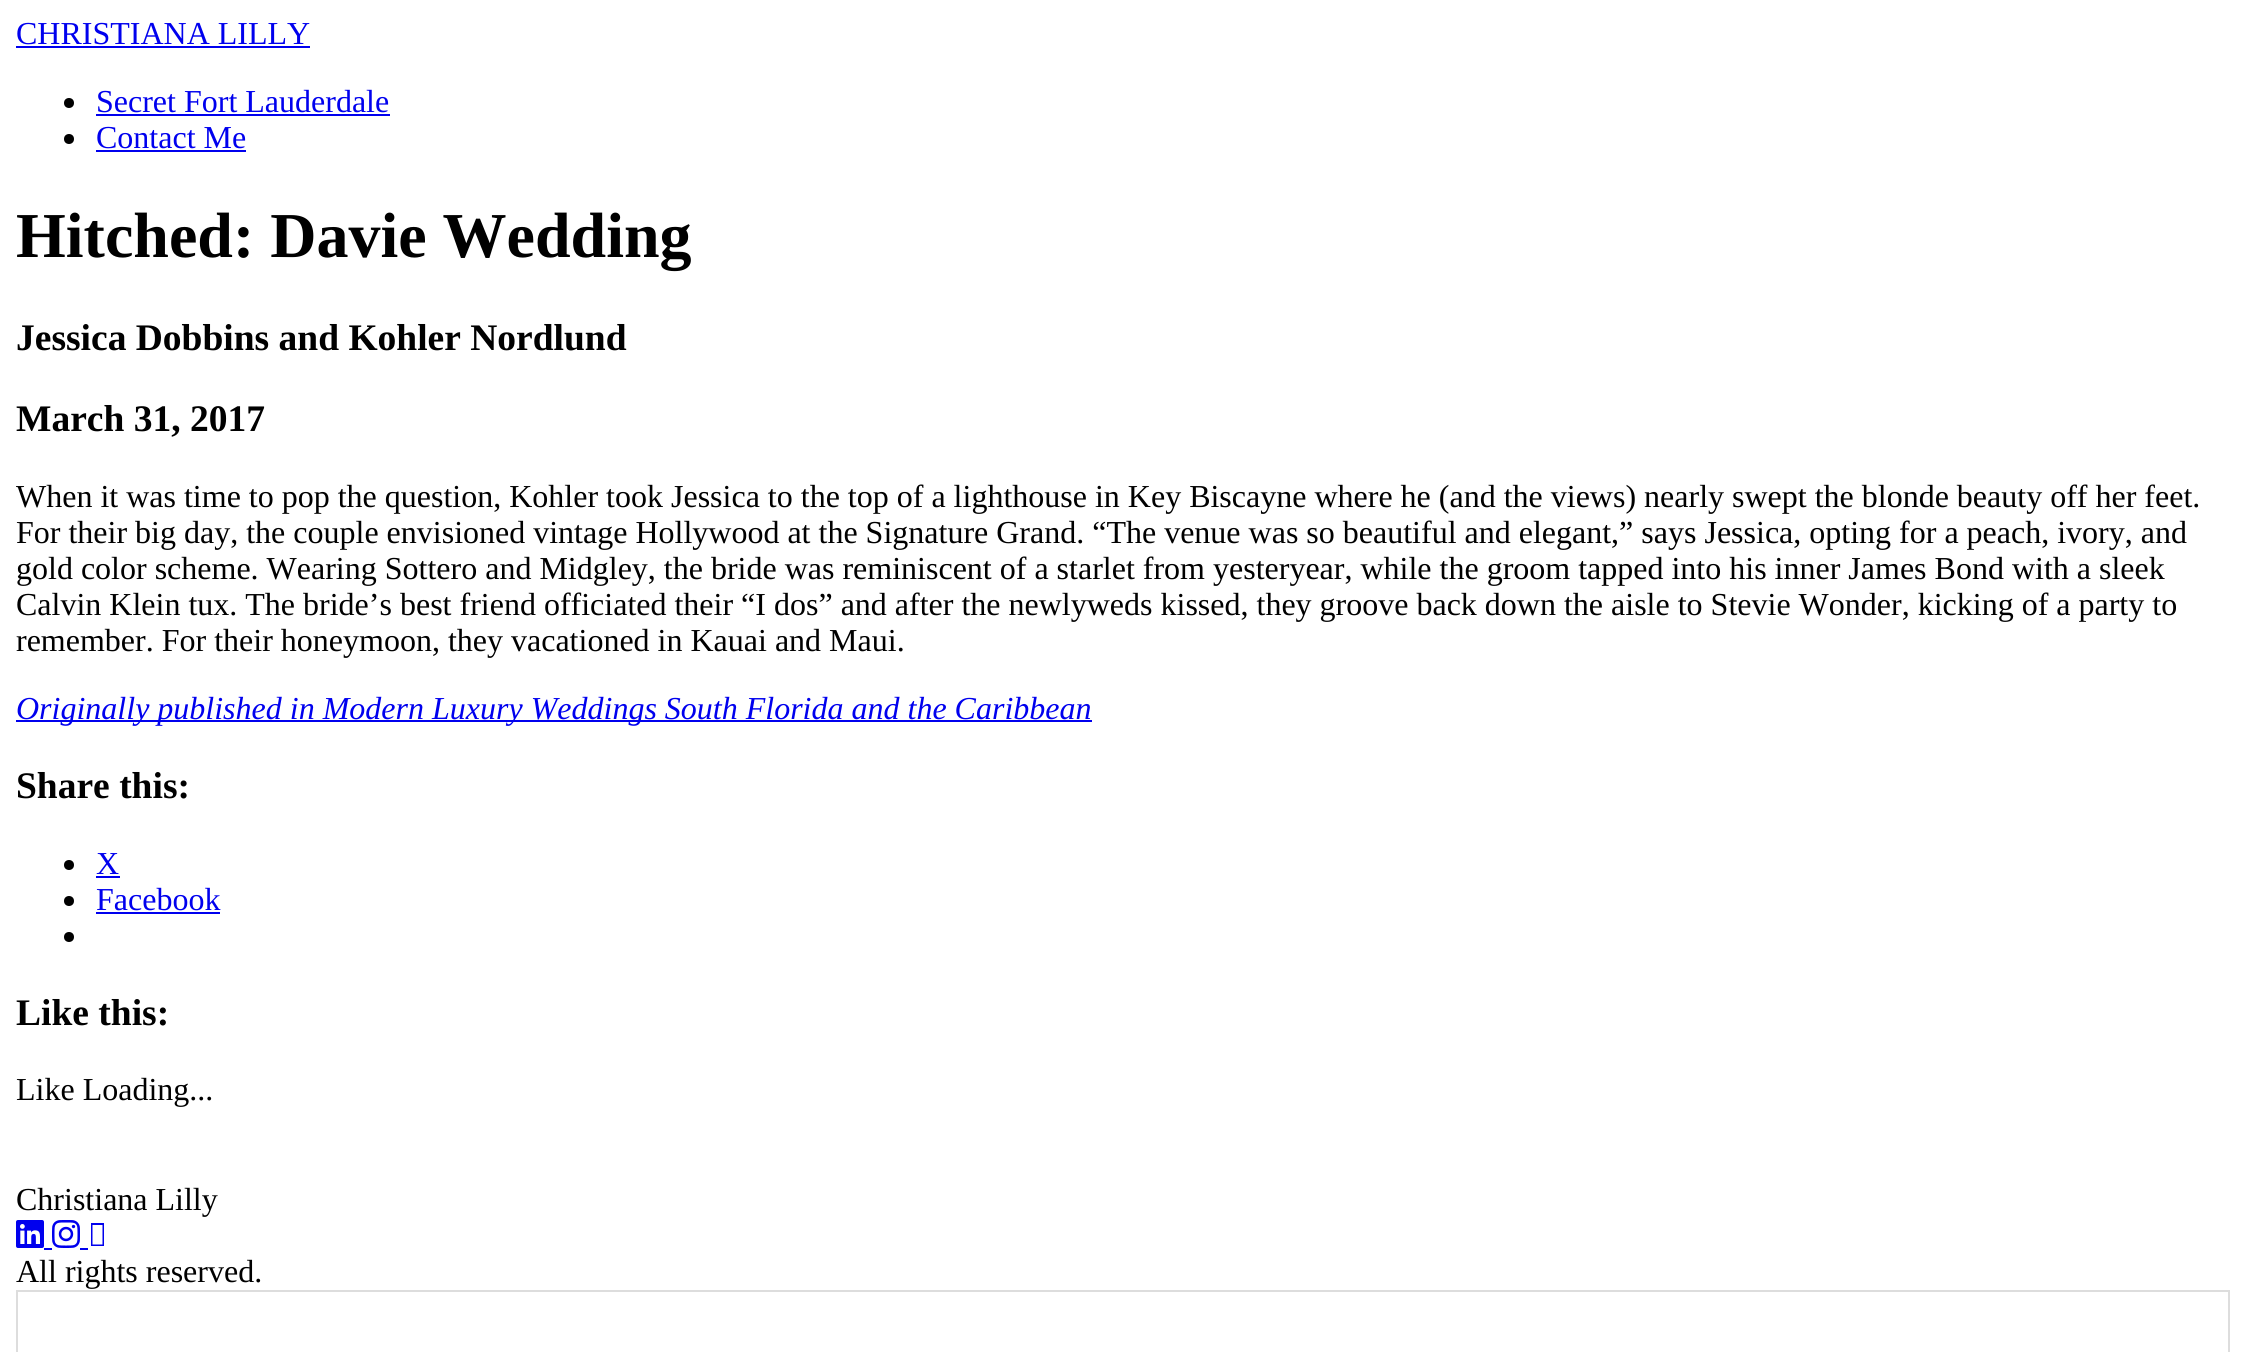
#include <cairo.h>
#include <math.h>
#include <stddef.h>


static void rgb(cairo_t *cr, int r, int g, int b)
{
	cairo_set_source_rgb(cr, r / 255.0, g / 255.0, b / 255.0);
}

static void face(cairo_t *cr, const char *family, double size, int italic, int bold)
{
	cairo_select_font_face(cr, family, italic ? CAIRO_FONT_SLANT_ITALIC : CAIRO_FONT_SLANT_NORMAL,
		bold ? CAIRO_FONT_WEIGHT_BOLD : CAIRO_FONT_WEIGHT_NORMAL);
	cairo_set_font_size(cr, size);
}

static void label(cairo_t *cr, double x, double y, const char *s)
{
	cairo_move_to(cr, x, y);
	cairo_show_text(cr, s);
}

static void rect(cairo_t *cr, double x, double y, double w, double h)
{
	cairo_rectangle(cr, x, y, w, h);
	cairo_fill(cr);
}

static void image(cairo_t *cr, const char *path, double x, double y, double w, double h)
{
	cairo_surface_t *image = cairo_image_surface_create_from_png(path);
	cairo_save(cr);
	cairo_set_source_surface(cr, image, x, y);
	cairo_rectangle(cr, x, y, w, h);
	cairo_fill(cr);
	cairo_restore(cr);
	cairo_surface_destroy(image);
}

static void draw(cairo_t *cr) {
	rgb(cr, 255, 255, 255);
	cairo_paint(cr);
	face(cr, "Liberation Serif", 32, 0, 0);
	rgb(cr, 0, 0, 238);
	label(cr, 16, 44, "CHRISTIANA LILLY");
	rect(cr, 16, 46, 294, 2);
	rgb(cr, 0, 0, 0);
	cairo_new_path(cr);
	cairo_arc(cr, 69, 103, 5, 0, 2 * M_PI);
	cairo_fill(cr);
	rgb(cr, 0, 0, 238);
	label(cr, 96, 112, "Secret Fort Lauderdale");
	rect(cr, 96, 114, 294, 2);
	rgb(cr, 0, 0, 0);
	cairo_new_path(cr);
	cairo_arc(cr, 69, 139, 5, 0, 2 * M_PI);
	cairo_fill(cr);
	rgb(cr, 0, 0, 238);
	label(cr, 96, 148, "Contact Me");
	rect(cr, 96, 150, 150, 2);
	face(cr, "Liberation Serif", 64, 0, 1);
	rgb(cr, 0, 0, 0);
	label(cr, 16, 257, "Hitched: Davie Wedding");
	face(cr, "Liberation Serif", 37.5, 0, 1);
	label(cr, 16, 350, "Jessica Dobbins and Kohler Nordlund");
	label(cr, 16, 431, "March 31, 2017");
	face(cr, "Liberation Serif", 32, 0, 0);
	label(cr, 16, 507, "When it was time to pop the question, Kohler took Jessica to the top of a lighthouse in Key Biscayne where he (and the views) nearly swept the blonde beauty off her feet.");
	label(cr, 16, 543, "For their big day, the couple envisioned vintage Hollywood at the Signature Grand. “The venue was so beautiful and elegant,” says Jessica, opting for a peach, ivory, and");
	label(cr, 16, 579, "gold color scheme. Wearing Sottero and Midgley, the bride was reminiscent of a starlet from yesteryear, while the groom tapped into his inner James Bond with a sleek");
	label(cr, 16, 615, "Calvin Klein tux. The bride’s best friend officiated their “I dos” and after the newlyweds kissed, they groove back down the aisle to Stevie Wonder, kicking of a party to");
	label(cr, 16, 651, "remember. For their honeymoon, they vacationed in Kauai and Maui.");
	rgb(cr, 0, 0, 238);
	rect(cr, 16, 720, 1076, 2);
	face(cr, "Liberation Serif", 32, 1, 0);
	label(cr, 16, 719, "Originally published in Modern Luxury Weddings South Florida and the Caribbean");
	face(cr, "Liberation Serif", 37.5, 0, 1);
	rgb(cr, 0, 0, 0);
	label(cr, 16, 798, "Share this:");
	cairo_new_path(cr);
	cairo_arc(cr, 69, 865, 5, 0, 2 * M_PI);
	cairo_fill(cr);
	face(cr, "Liberation Serif", 32, 0, 0);
	rgb(cr, 0, 0, 238);
	label(cr, 96, 874, "X");
	rect(cr, 96, 876, 24, 2);
	rgb(cr, 0, 0, 0);
	cairo_new_path(cr);
	cairo_arc(cr, 69, 901, 5, 0, 2 * M_PI);
	cairo_fill(cr);
	rgb(cr, 0, 0, 238);
	label(cr, 96, 910, "Facebook");
	rect(cr, 96, 912, 124, 2);
	rgb(cr, 0, 0, 0);
	cairo_new_path(cr);
	cairo_arc(cr, 69, 937, 5, 0, 2 * M_PI);
	cairo_fill(cr);
	face(cr, "Liberation Serif", 37.5, 0, 1);
	label(cr, 16, 1025, "Like this:");
	face(cr, "Liberation Serif", 32, 0, 0);
	label(cr, 16, 1100, "Like Loading...");
	label(cr, 16, 1210, "Christiana Lilly");
	image(cr, "image0.png", 16, 1220, 28, 28);
	rgb(cr, 0, 0, 238);
	rect(cr, 44, 1248, 8, 2);
	image(cr, "image1.png", 52, 1220, 28, 28);
	rect(cr, 80, 1248, 8, 2);
	cairo_new_path(cr);
	cairo_move_to(cr, 91, 1246);
	cairo_line_to(cr, 91, 1223);
	cairo_line_to(cr, 104, 1223);
	cairo_line_to(cr, 104, 1246);
	cairo_close_path(cr);
	cairo_move_to(cr, 92.5, 1244.5);
	cairo_line_to(cr, 102.5, 1244.5);
	cairo_line_to(cr, 102.5, 1225);
	cairo_line_to(cr, 92.5, 1225);
	cairo_close_path(cr);
	cairo_fill(cr);
	rgb(cr, 0, 0, 0);
	label(cr, 16, 1282, "All rights reserved.");
	cairo_rectangle(cr, 17, 1291, 2212, 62);
	rgb(cr, 221, 221, 221);
	cairo_stroke(cr);
}

int main(void) {
	cairo_surface_t *surface = cairo_image_surface_create(CAIRO_FORMAT_RGB24, 2246, 1352);
	cairo_t *cr = cairo_create(surface);
	cairo_font_options_t *options = cairo_font_options_create();
	cairo_font_options_set_hint_metrics(options, CAIRO_HINT_METRICS_OFF);
	cairo_font_options_set_hint_style(options, CAIRO_HINT_STYLE_NONE);
	cairo_set_font_options(cr, options);
	cairo_set_miter_limit(cr, 4);
	draw(cr);
	cairo_surface_write_to_png(surface, "render.png");
	cairo_font_options_destroy(options);
	cairo_destroy(cr);
	cairo_surface_destroy(surface);
	return 0;
}
